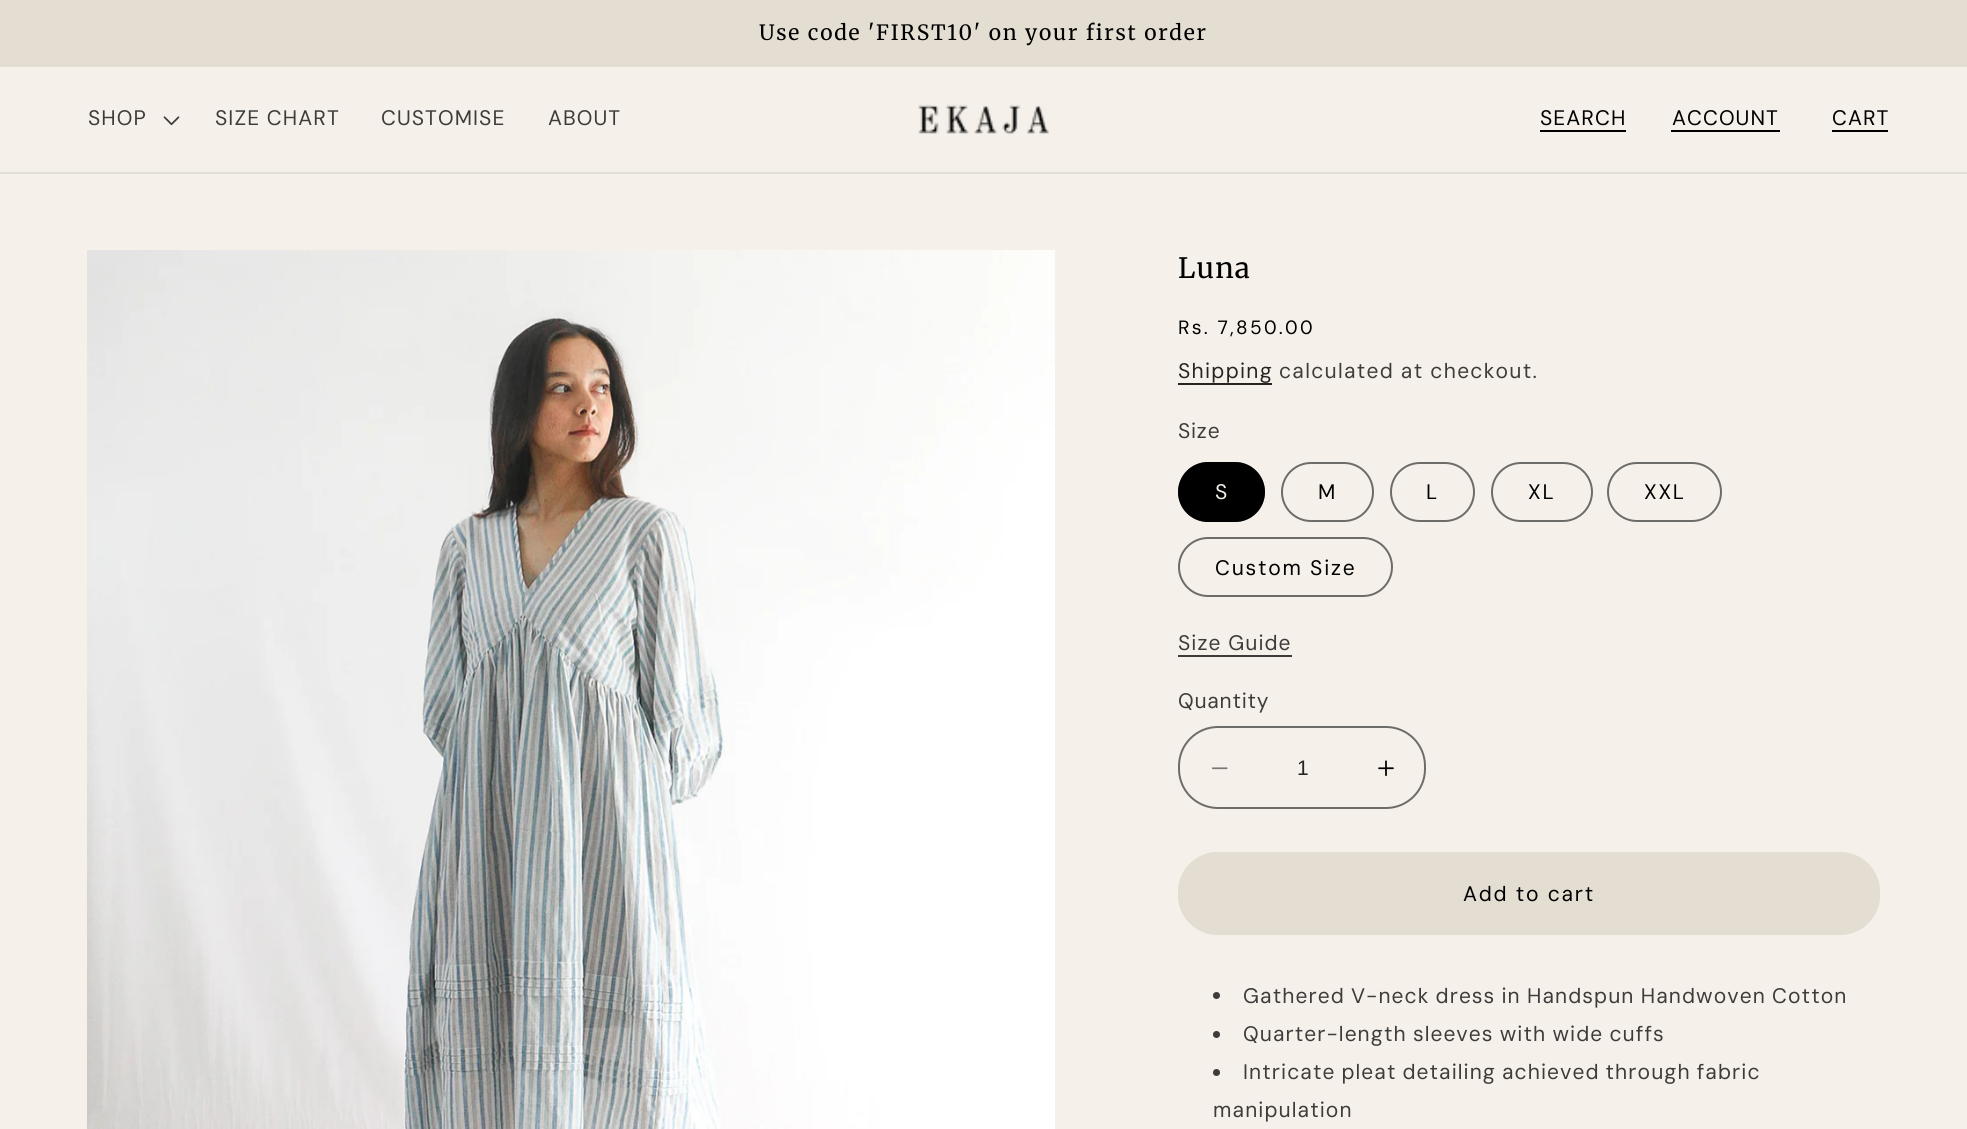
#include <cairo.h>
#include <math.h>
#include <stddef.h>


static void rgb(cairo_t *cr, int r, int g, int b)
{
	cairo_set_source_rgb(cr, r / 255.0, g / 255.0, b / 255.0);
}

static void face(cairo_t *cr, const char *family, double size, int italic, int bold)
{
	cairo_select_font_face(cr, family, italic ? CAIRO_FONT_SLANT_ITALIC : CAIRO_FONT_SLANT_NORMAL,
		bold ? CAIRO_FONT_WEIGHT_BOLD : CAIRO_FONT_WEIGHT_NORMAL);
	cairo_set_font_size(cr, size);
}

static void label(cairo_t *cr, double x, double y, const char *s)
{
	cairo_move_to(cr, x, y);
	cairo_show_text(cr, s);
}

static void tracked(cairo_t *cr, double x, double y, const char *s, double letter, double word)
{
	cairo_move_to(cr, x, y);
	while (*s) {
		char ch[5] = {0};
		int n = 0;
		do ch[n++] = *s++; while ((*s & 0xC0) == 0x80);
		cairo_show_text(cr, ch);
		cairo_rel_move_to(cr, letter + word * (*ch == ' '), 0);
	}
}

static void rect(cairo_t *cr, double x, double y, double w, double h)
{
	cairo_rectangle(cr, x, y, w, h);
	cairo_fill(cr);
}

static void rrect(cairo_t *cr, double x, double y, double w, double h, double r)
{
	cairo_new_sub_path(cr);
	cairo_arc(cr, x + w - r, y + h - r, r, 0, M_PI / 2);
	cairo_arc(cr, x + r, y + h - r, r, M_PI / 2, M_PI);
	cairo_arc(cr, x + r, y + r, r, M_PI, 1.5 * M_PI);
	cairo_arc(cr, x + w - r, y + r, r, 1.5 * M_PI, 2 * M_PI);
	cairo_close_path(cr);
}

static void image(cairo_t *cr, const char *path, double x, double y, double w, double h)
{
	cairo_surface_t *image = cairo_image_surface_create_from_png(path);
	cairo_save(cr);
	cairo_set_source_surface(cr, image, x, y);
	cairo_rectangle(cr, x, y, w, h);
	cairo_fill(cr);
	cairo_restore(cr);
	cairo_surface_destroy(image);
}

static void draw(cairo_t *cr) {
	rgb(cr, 245, 241, 234);
	cairo_paint(cr);
	rgb(cr, 228, 222, 210);
	rect(cr, 0, 0, 1967, 67);
	face(cr, "Merriweather", 21, 0, 0);
	rgb(cr, 0, 0, 0);
	tracked(cr, 759, 40, "Use code 'FIRST10' on your first order", 1.75, 0);
	rgb(cr, 225, 222, 215);
	rect(cr, 0, 172, 1967, 2);
	face(cr, "DM Sans", 21, 0, 0);
	rgb(cr, 61, 60, 59);
	tracked(cr, 88, 125, "SHOP", 1.05, 0);
	image(cr, "image0.png", 163, 116, 17, 10);
	tracked(cr, 215, 125, "SIZE CHART", 1.05, 0);
	tracked(cr, 381, 125, "CUSTOMISE", 1.05, 0);
	tracked(cr, 548, 125, "ABOUT", 1.05, 0);
	image(cr, "image1.png", 918, 104, 131, 31);
	rgb(cr, 0, 0, 0);
	rect(cr, 1540, 130, 86, 2);
	tracked(cr, 1540, 125, "SEARCH", 1.05, 0);
	rect(cr, 1671, 130, 109, 2);
	tracked(cr, 1672, 125, "ACCOUNT", 1.05, 0);
	rect(cr, 1832, 130, 56, 2);
	tracked(cr, 1832, 125, "CART", 1.05, 0);
	image(cr, "image2.png", 87, 250, 968, 879);
	face(cr, "Merriweather", 28, 0, 0);
	tracked(cr, 1178, 278, "Luna", 1.05, 0);
	face(cr, "DM Sans", 19.25, 0, 0);
	tracked(cr, 1178, 334, "Rs. 7,850.00", 2.25, 0);
	face(cr, "DM Sans", 21, 0, 0);
	rgb(cr, 37, 36, 35);
	tracked(cr, 1178, 378, "Shipping", 1.25, 0);
	rect(cr, 1178, 383, 94, 2);
	rgb(cr, 61, 60, 59);
	tracked(cr, 1279, 378, "calculated at checkout.", 1.25, 0);
	tracked(cr, 1178, 438, "Size", 0.75, 0);
	rgb(cr, 0, 0, 0);
	rrect(cr, 1178, 462, 87, 60, 30);
	cairo_fill(cr);
	rrect(cr, 1179, 463, 85, 58, 29);
	cairo_set_source_rgba(cr, 0, 0, 0, 0.55);
	cairo_stroke(cr);
	rgb(cr, 245, 241, 234);
	tracked(cr, 1215, 499, "S", 1.75, 0);
	rrect(cr, 1282, 463, 91, 58, 29);
	rgb(cr, 110, 108, 105);
	cairo_stroke(cr);
	rgb(cr, 0, 0, 0);
	tracked(cr, 1318, 499, "M", 1.75, 0);
	rrect(cr, 1391, 463, 83, 58, 29);
	rgb(cr, 110, 108, 105);
	cairo_stroke(cr);
	rgb(cr, 0, 0, 0);
	tracked(cr, 1426, 499, "L", 1.75, 0);
	rrect(cr, 1492, 463, 100, 58, 29);
	rgb(cr, 110, 108, 105);
	cairo_stroke(cr);
	rgb(cr, 0, 0, 0);
	tracked(cr, 1528, 499, "XL", 1.75, 0);
	rrect(cr, 1608, 463, 113, 58, 29);
	rgb(cr, 110, 108, 105);
	cairo_stroke(cr);
	rgb(cr, 0, 0, 0);
	tracked(cr, 1644, 499, "XXL", 1.75, 0);
	rrect(cr, 1179, 538, 213, 58, 29);
	rgb(cr, 110, 108, 105);
	cairo_stroke(cr);
	rgb(cr, 0, 0, 0);
	tracked(cr, 1215, 575, "Custom Size", 1.75, 0);
	rgb(cr, 61, 60, 59);
	tracked(cr, 1178, 650, "Size Guide", 1.05, 0);
	rect(cr, 1178, 655, 114, 2);
	tracked(cr, 1178, 708, "Quantity", 0.75, 0);
	image(cr, "image3.png", 1212, 767, 16, 3);
	image(cr, "image4.png", 1378, 760, 16, 17);
	rrect(cr, 1179, 727, 246, 81, 39);
	rgb(cr, 110, 108, 105);
	cairo_stroke(cr);
	face(cr, "Liberation Sans", 21, 0, 0);
	rgb(cr, 37, 36, 35);
	label(cr, 1297, 775, "1");
	rgb(cr, 228, 222, 210);
	rrect(cr, 1178, 852, 702, 83, 40);
	cairo_fill(cr);
	rrect(cr, 1179, 853, 700, 81, 39);
	cairo_stroke(cr);
	face(cr, "DM Sans", 21, 0, 0);
	rgb(cr, 0, 0, 0);
	tracked(cr, 1463, 901, "Add to cart", 1.75, 0);
	rgb(cr, 61, 60, 59);
	cairo_new_path(cr);
	cairo_arc(cr, 1216.5, 995.5, 3.5, 0, 2 * M_PI);
	cairo_fill(cr);
	tracked(cr, 1243, 1003, "Gathered V-neck dress in Handspun Handwoven Cotton", 1.05, -0.5);
	cairo_new_path(cr);
	cairo_arc(cr, 1216.5, 1034.5, 3.5, 0, 2 * M_PI);
	cairo_fill(cr);
	tracked(cr, 1243, 1041, "Quarter-length sleeves with wide cuffs", 1.05, -0.5);
	cairo_new_path(cr);
	cairo_arc(cr, 1216.5, 1072.5, 3.5, 0, 2 * M_PI);
	cairo_fill(cr);
	tracked(cr, 1243, 1079, "Intricate pleat detailing achieved through fabric", 1.05, -0.75);
	tracked(cr, 1213, 1117, "manipulation", 1.05, 0);
}

int main(void) {
	cairo_surface_t *surface = cairo_image_surface_create(CAIRO_FORMAT_RGB24, 1967, 1129);
	cairo_t *cr = cairo_create(surface);
	cairo_font_options_t *options = cairo_font_options_create();
	cairo_font_options_set_hint_metrics(options, CAIRO_HINT_METRICS_OFF);
	cairo_font_options_set_hint_style(options, CAIRO_HINT_STYLE_NONE);
	cairo_set_font_options(cr, options);
	cairo_set_miter_limit(cr, 4);
	draw(cr);
	cairo_surface_write_to_png(surface, "render.png");
	cairo_font_options_destroy(options);
	cairo_destroy(cr);
	cairo_surface_destroy(surface);
	return 0;
}
